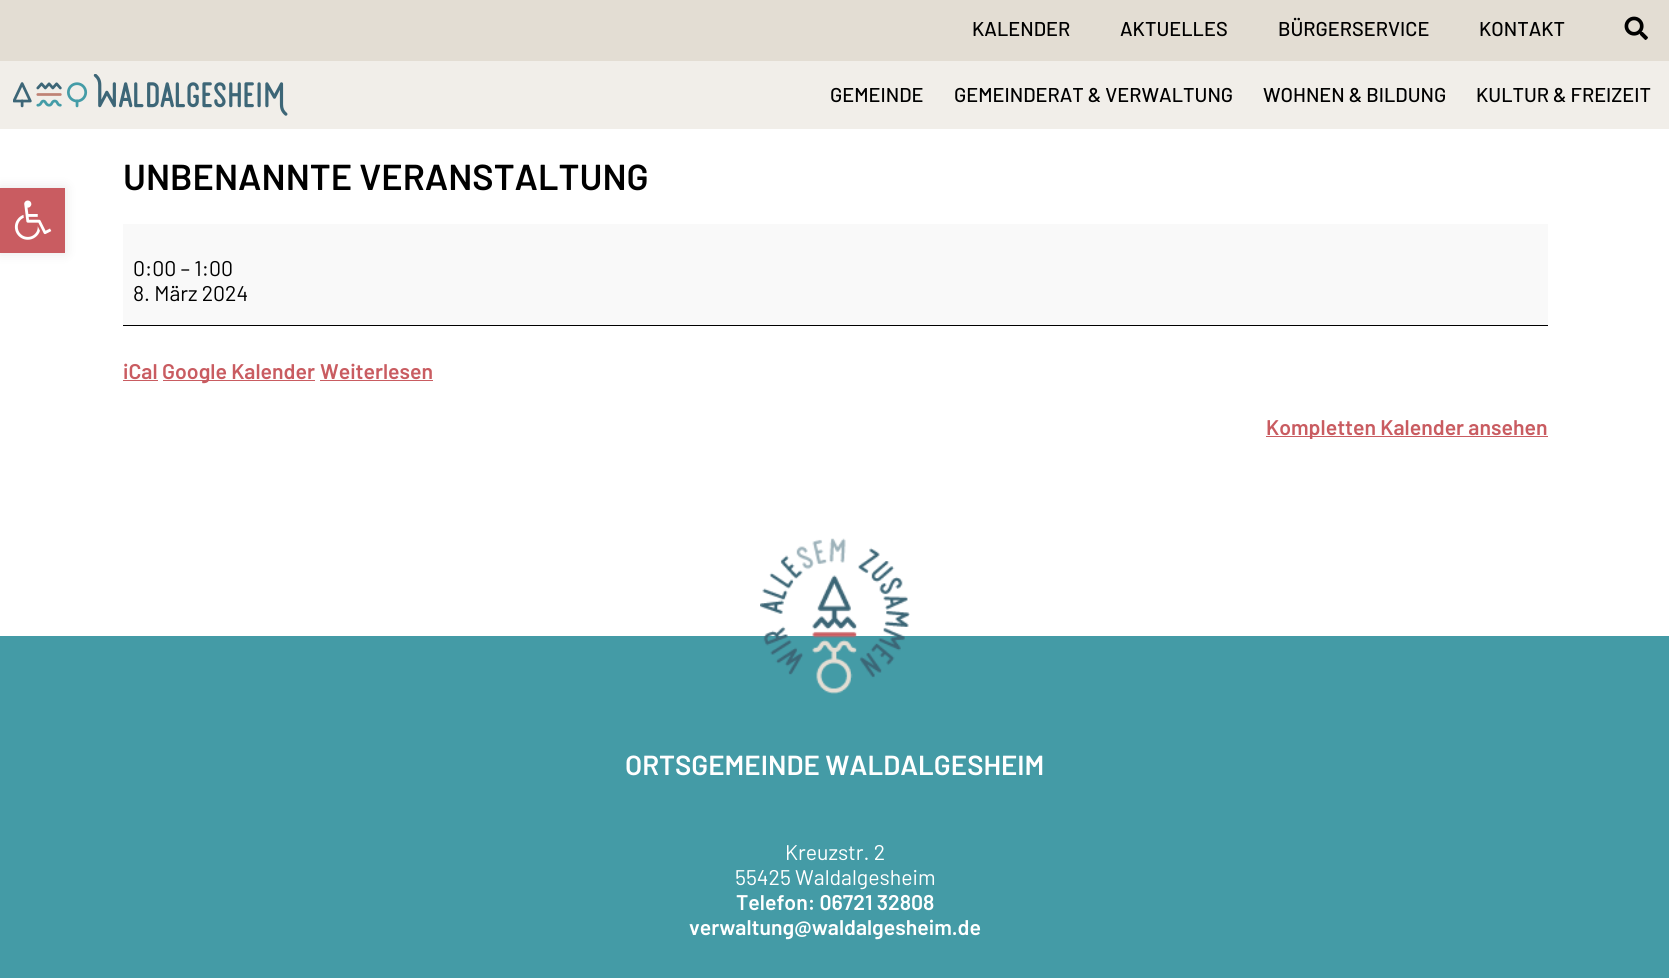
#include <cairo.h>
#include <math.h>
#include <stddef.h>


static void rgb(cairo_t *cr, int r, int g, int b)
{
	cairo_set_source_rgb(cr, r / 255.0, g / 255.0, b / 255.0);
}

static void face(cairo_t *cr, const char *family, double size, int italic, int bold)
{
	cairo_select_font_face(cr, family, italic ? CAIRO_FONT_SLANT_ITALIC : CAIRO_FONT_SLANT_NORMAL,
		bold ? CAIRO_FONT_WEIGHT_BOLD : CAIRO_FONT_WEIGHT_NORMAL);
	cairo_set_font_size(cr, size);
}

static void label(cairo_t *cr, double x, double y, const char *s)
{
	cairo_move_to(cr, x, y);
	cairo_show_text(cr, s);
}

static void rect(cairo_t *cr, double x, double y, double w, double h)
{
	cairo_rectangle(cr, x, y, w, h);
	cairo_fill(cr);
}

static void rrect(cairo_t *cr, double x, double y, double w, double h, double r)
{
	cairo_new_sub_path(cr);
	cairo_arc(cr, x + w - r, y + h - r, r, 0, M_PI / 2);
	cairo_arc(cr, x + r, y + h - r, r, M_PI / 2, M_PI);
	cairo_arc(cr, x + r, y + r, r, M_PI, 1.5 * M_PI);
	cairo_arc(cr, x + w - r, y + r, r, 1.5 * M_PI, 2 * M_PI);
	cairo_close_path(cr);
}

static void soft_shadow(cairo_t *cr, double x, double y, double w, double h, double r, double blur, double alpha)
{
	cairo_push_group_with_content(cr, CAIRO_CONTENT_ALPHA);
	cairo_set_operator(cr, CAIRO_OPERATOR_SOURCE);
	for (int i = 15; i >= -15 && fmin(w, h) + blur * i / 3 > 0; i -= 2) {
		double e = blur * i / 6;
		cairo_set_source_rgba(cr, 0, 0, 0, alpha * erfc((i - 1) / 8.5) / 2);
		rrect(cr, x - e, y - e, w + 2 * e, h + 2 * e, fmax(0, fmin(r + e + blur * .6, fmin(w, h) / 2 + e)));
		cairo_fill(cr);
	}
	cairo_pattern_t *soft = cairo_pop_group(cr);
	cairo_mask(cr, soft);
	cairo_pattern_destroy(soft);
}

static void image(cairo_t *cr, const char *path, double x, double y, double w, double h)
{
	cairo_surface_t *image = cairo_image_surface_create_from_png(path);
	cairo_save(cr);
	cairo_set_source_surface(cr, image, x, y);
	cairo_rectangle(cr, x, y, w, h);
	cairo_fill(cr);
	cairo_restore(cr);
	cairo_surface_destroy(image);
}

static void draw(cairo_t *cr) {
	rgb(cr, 255, 255, 255);
	cairo_paint(cr);
	rgb(cr, 227, 221, 211);
	rect(cr, 0, 0, 1669, 61);
	face(cr, "Barlow Medium", 20, 0, 0);
	rgb(cr, 0, 0, 0);
	label(cr, 972, 36, "KALENDER");
	label(cr, 1120, 36, "AKTUELLES");
	label(cr, 1278, 36, "BÜRGERSERVICE");
	label(cr, 1479, 36, "KONTAKT");
	image(cr, "image0.png", 1624, 16, 24, 24);
	rgb(cr, 241, 238, 233);
	rect(cr, 0, 61, 1669, 68);
	image(cr, "image1.png", 13, 74, 275, 42);
	rgb(cr, 0, 0, 0);
	label(cr, 830, 102, "GEMEINDE");
	label(cr, 954, 102, "GEMEINDERAT & VERWALTUNG");
	label(cr, 1263, 102, "WOHNEN & BILDUNG");
	label(cr, 1476, 102, "KULTUR & FREIZEIT");
	rgb(cr, 0, 0, 0);
	soft_shadow(cr, 0, 188, 65, 65, 0, 6, 0.1);
	rgb(cr, 201, 92, 97);
	rect(cr, 0, 188, 65, 65);
	image(cr, "image2.png", 14, 200, 38, 40);
	face(cr, "Barlow SemiBold", 36.1, 0, 0);
	rgb(cr, 0, 0, 0);
	label(cr, 123, 190, "UNBENANNTE VERANSTALTUNG");
	rgb(cr, 249, 249, 249);
	rect(cr, 123, 224, 1425, 101);
	rgb(cr, 0, 0, 0);
	rect(cr, 123, 325, 1425, 1);
	face(cr, "Barlow", 21.25, 0, 0);
	label(cr, 133, 276, "0:00 – 1:00");
	label(cr, 133, 301, "8. März 2024");
	face(cr, "Barlow SemiBold", 21.25, 0, 0);
	rgb(cr, 201, 92, 97);
	label(cr, 123, 379, "iCal");
	rect(cr, 123, 380, 35, 1);
	rect(cr, 163, 380, 152, 1);
	label(cr, 162, 379, "Google Kalender");
	label(cr, 320, 379, "Weiterlesen");
	rect(cr, 320, 380, 113, 1);
	rect(cr, 1266, 436, 282, 1);
	label(cr, 1266, 435, "Kompletten Kalender ansehen");
	rgb(cr, 68, 155, 166);
	rect(cr, 0, 636, 1669, 342);
	image(cr, "image3.png", 760, 538, 150, 156);
	face(cr, "Barlow SemiBold", 27.6, 0, 0);
	rgb(cr, 255, 255, 255);
	label(cr, 625, 775, "ORTSGEMEINDE WALDALGESHEIM");
	face(cr, "Barlow", 21.25, 0, 0);
	label(cr, 785, 860, "Kreuzstr. 2");
	label(cr, 735, 885, "55425 Waldalgesheim");
	face(cr, "Barlow SemiBold", 21.25, 0, 0);
	label(cr, 736, 910, "Telefon: 06721 32808");
	label(cr, 689, 935, "verwaltung@waldalgesheim.de");
}

int main(void) {
	cairo_surface_t *surface = cairo_image_surface_create(CAIRO_FORMAT_RGB24, 1669, 978);
	cairo_t *cr = cairo_create(surface);
	cairo_font_options_t *options = cairo_font_options_create();
	cairo_font_options_set_hint_metrics(options, CAIRO_HINT_METRICS_OFF);
	cairo_font_options_set_hint_style(options, CAIRO_HINT_STYLE_NONE);
	cairo_set_font_options(cr, options);
	cairo_set_miter_limit(cr, 4);
	draw(cr);
	cairo_surface_write_to_png(surface, "render.png");
	cairo_font_options_destroy(options);
	cairo_destroy(cr);
	cairo_surface_destroy(surface);
	return 0;
}
